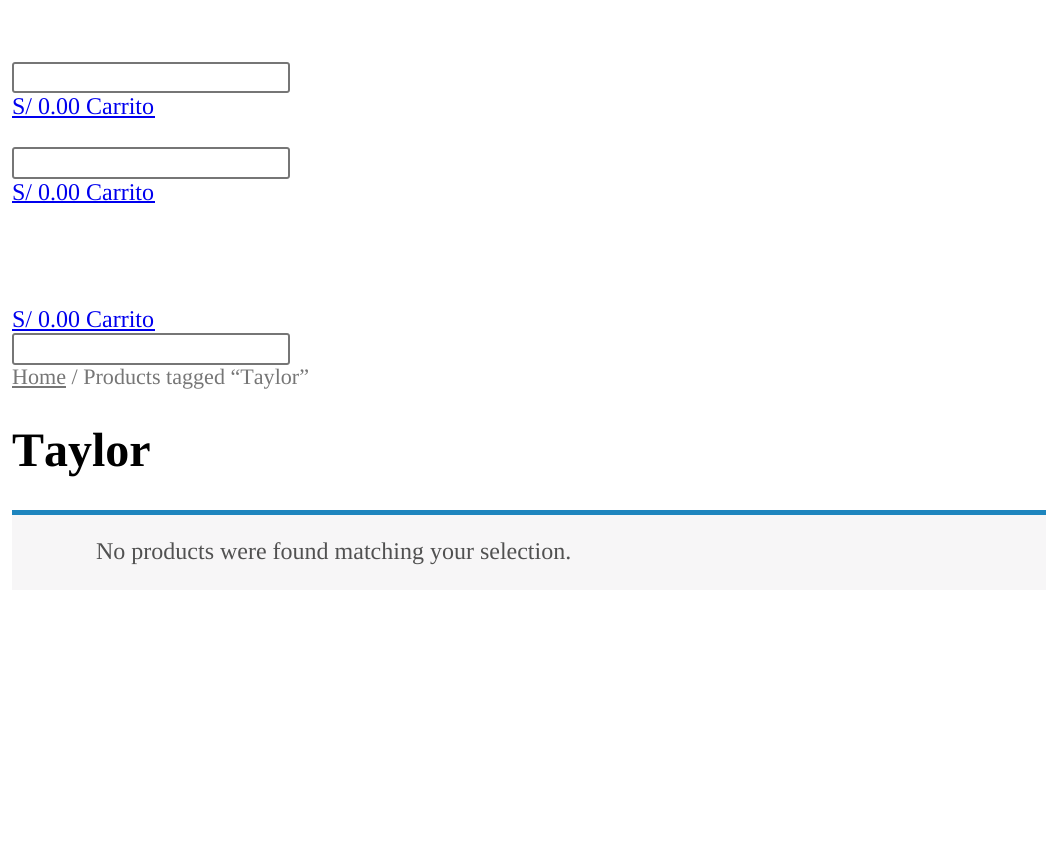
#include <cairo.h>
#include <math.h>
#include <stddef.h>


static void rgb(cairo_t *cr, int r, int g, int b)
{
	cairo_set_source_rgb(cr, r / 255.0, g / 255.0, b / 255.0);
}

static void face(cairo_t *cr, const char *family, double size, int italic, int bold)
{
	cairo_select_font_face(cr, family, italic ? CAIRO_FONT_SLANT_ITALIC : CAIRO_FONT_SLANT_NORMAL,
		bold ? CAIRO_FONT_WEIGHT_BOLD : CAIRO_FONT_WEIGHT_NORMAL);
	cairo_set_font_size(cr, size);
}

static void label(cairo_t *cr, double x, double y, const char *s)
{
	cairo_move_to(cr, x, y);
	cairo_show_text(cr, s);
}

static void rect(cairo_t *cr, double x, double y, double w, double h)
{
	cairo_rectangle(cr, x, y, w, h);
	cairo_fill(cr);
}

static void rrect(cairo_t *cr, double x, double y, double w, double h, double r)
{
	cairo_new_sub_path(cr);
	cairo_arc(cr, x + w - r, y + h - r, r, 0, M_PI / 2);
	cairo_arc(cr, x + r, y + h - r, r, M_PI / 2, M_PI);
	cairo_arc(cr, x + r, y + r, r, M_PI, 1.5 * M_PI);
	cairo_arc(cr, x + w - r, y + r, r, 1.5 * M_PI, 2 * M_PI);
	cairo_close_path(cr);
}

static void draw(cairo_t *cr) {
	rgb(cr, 255, 255, 255);
	cairo_paint(cr);
	rrect(cr, 13, 63, 276, 29, 2);
	rgb(cr, 118, 118, 118);
	cairo_stroke(cr);
	face(cr, "Liberation Serif", 24, 0, 0);
	rgb(cr, 0, 0, 238);
	label(cr, 12, 114, "S/ 0.00 Carrito");
	rect(cr, 12, 116, 143, 2);
	rrect(cr, 13, 148, 276, 30, 2);
	rgb(cr, 118, 118, 118);
	cairo_stroke(cr);
	rgb(cr, 0, 0, 238);
	label(cr, 12, 200, "S/ 0.00 Carrito");
	rect(cr, 12, 201, 143, 2);
	label(cr, 12, 327, "S/ 0.00 Carrito");
	rect(cr, 12, 329, 143, 2);
	rrect(cr, 13, 334, 276, 30, 2);
	rgb(cr, 118, 118, 118);
	cairo_stroke(cr);
	rect(cr, 12, 386, 54, 2);
	face(cr, "Liberation Serif", 22.1, 0, 0);
	label(cr, 12, 384, "Home / Products tagged “Taylor”");
	face(cr, "Liberation Serif", 48, 0, 1);
	rgb(cr, 0, 0, 0);
	label(cr, 12, 466, "Taylor");
	rgb(cr, 247, 246, 247);
	rect(cr, 12, 515, 1034, 75);
	rgb(cr, 30, 133, 190);
	rect(cr, 12, 510, 1034, 5);
	face(cr, "Liberation Serif", 24, 0, 0);
	rgb(cr, 81, 81, 81);
	label(cr, 96, 559, "No products were found matching your selection.");
}

int main(void) {
	cairo_surface_t *surface = cairo_image_surface_create(CAIRO_FORMAT_RGB24, 1057, 844);
	cairo_t *cr = cairo_create(surface);
	cairo_font_options_t *options = cairo_font_options_create();
	cairo_font_options_set_hint_metrics(options, CAIRO_HINT_METRICS_OFF);
	cairo_font_options_set_hint_style(options, CAIRO_HINT_STYLE_NONE);
	cairo_set_font_options(cr, options);
	cairo_set_miter_limit(cr, 4);
	draw(cr);
	cairo_surface_write_to_png(surface, "render.png");
	cairo_font_options_destroy(options);
	cairo_destroy(cr);
	cairo_surface_destroy(surface);
	return 0;
}
